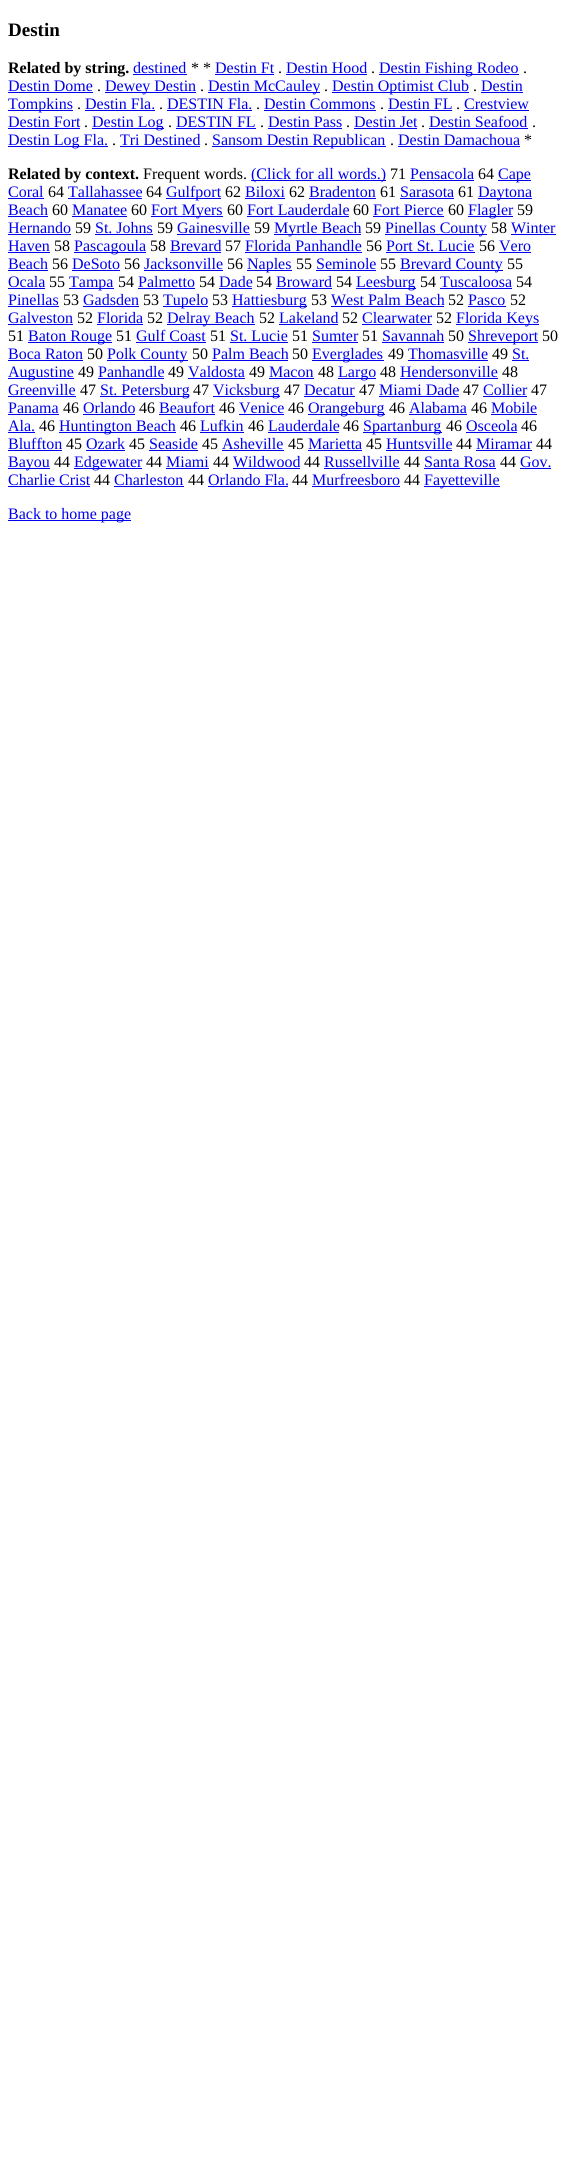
#include <cairo.h>
#include <math.h>
#include <stddef.h>


static void rgb(cairo_t *cr, int r, int g, int b)
{
	cairo_set_source_rgb(cr, r / 255.0, g / 255.0, b / 255.0);
}

static void face(cairo_t *cr, const char *family, double size, int italic, int bold)
{
	cairo_select_font_face(cr, family, italic ? CAIRO_FONT_SLANT_ITALIC : CAIRO_FONT_SLANT_NORMAL,
		bold ? CAIRO_FONT_WEIGHT_BOLD : CAIRO_FONT_WEIGHT_NORMAL);
	cairo_set_font_size(cr, size);
}

static void label(cairo_t *cr, double x, double y, const char *s)
{
	cairo_move_to(cr, x, y);
	cairo_show_text(cr, s);
}

static void rect(cairo_t *cr, double x, double y, double w, double h)
{
	cairo_rectangle(cr, x, y, w, h);
	cairo_fill(cr);
}

static void draw(cairo_t *cr) {
	rgb(cr, 255, 255, 255);
	cairo_paint(cr);
	face(cr, "Liberation Serif", 19, 0, 1);
	rgb(cr, 0, 0, 0);
	label(cr, 8, 36, "Destin");
	face(cr, "Liberation Serif", 16, 0, 1);
	label(cr, 8, 73, "Related by string.");
	face(cr, "Liberation Serif", 16, 0, 0);
	rgb(cr, 0, 0, 238);
	label(cr, 133, 73, "destined");
	rect(cr, 133, 74, 54, 1);
	rgb(cr, 0, 0, 0);
	label(cr, 191, 73, "* *");
	rgb(cr, 0, 0, 238);
	label(cr, 215, 73, "Destin Ft");
	rect(cr, 215, 74, 59, 1);
	rgb(cr, 0, 0, 0);
	label(cr, 278, 73, ".");
	rgb(cr, 0, 0, 238);
	label(cr, 286, 73, "Destin Hood");
	rect(cr, 286, 74, 81, 1);
	rgb(cr, 0, 0, 0);
	label(cr, 371, 73, ".");
	rgb(cr, 0, 0, 238);
	rect(cr, 379, 74, 140, 1);
	label(cr, 379, 73, "Destin Fishing Rodeo");
	rgb(cr, 0, 0, 0);
	label(cr, 523, 73, ".");
	rgb(cr, 0, 0, 238);
	label(cr, 8, 91, "Destin Dome");
	rect(cr, 8, 92, 85, 1);
	rgb(cr, 0, 0, 0);
	label(cr, 97, 91, ".");
	rgb(cr, 0, 0, 238);
	rect(cr, 105, 92, 91, 1);
	label(cr, 105, 91, "Dewey Destin");
	rgb(cr, 0, 0, 0);
	label(cr, 200, 91, ".");
	rgb(cr, 0, 0, 238);
	rect(cr, 208, 92, 112, 1);
	label(cr, 208, 91, "Destin McCauley");
	rgb(cr, 0, 0, 0);
	label(cr, 324, 91, ".");
	rgb(cr, 0, 0, 238);
	rect(cr, 332, 92, 137, 1);
	label(cr, 332, 91, "Destin Optimist Club");
	rgb(cr, 0, 0, 0);
	label(cr, 473, 91, ".");
	rgb(cr, 0, 0, 238);
	label(cr, 481, 91, "Destin");
	rect(cr, 481, 92, 42, 1);
	rect(cr, 8, 110, 65, 1);
	label(cr, 8, 109, "Tompkins");
	rgb(cr, 0, 0, 0);
	label(cr, 77, 109, ".");
	rgb(cr, 0, 0, 238);
	label(cr, 85, 109, "Destin Fla.");
	rect(cr, 85, 110, 70, 1);
	rgb(cr, 0, 0, 0);
	label(cr, 159, 109, ".");
	rgb(cr, 0, 0, 238);
	label(cr, 167, 109, "DESTIN Fla.");
	rect(cr, 167, 110, 85, 1);
	rgb(cr, 0, 0, 0);
	label(cr, 256, 109, ".");
	rgb(cr, 0, 0, 238);
	label(cr, 264, 109, "Destin Commons");
	rect(cr, 264, 110, 112, 1);
	rgb(cr, 0, 0, 0);
	label(cr, 380, 109, ".");
	rgb(cr, 0, 0, 238);
	label(cr, 388, 109, "Destin FL");
	rect(cr, 388, 110, 64, 1);
	rgb(cr, 0, 0, 0);
	label(cr, 456, 109, ".");
	rgb(cr, 0, 0, 238);
	label(cr, 464, 109, "Crestview");
	rect(cr, 464, 110, 65, 1);
	label(cr, 8, 127, "Destin Fort");
	rect(cr, 8, 128, 72, 1);
	rgb(cr, 0, 0, 0);
	label(cr, 84, 127, ".");
	rgb(cr, 0, 0, 238);
	rect(cr, 92, 128, 72, 1);
	label(cr, 92, 127, "Destin Log");
	rgb(cr, 0, 0, 0);
	label(cr, 168, 127, ".");
	rgb(cr, 0, 0, 238);
	label(cr, 176, 127, "DESTIN FL");
	rect(cr, 176, 128, 80, 1);
	rgb(cr, 0, 0, 0);
	label(cr, 260, 127, ".");
	rgb(cr, 0, 0, 238);
	label(cr, 268, 127, "Destin Pass");
	rect(cr, 268, 128, 74, 1);
	rgb(cr, 0, 0, 0);
	label(cr, 346, 127, ".");
	rgb(cr, 0, 0, 238);
	label(cr, 354, 127, "Destin Jet");
	rect(cr, 354, 128, 63, 1);
	rgb(cr, 0, 0, 0);
	label(cr, 421, 127, ".");
	rgb(cr, 0, 0, 238);
	label(cr, 429, 127, "Destin Seafood");
	rect(cr, 429, 128, 99, 1);
	rgb(cr, 0, 0, 0);
	label(cr, 532, 127, ".");
	rgb(cr, 0, 0, 238);
	rect(cr, 8, 146, 100, 1);
	label(cr, 8, 145, "Destin Log Fla.");
	label(cr, 120, 145, "Tri Destined");
	rect(cr, 120, 146, 80, 1);
	rect(cr, 212, 146, 174, 1);
	label(cr, 212, 145, "Sansom Destin Republican");
	label(cr, 398, 145, "Destin Damachoua");
	rect(cr, 398, 146, 122, 1);
	rgb(cr, 0, 0, 0);
	label(cr, 524, 145, "*");
	label(cr, 112, 145, ".");
	label(cr, 204, 145, ".");
	label(cr, 390, 145, ".");
	face(cr, "Liberation Serif", 16, 0, 1);
	label(cr, 8, 179, "Related by context.");
	face(cr, "Liberation Serif", 16, 0, 0);
	label(cr, 143, 179, "Frequent words.");
	rgb(cr, 0, 0, 238);
	rect(cr, 251, 180, 135, 1);
	label(cr, 251, 179, "(Click for all words.)");
	rgb(cr, 0, 0, 0);
	label(cr, 390, 179, "71");
	rgb(cr, 0, 0, 238);
	label(cr, 410, 179, "Pensacola");
	rect(cr, 410, 180, 64, 1);
	rgb(cr, 0, 0, 0);
	label(cr, 478, 179, "64");
	rgb(cr, 0, 0, 238);
	rect(cr, 498, 180, 33, 1);
	label(cr, 498, 179, "Cape");
	label(cr, 8, 197, "Coral");
	rect(cr, 8, 198, 36, 1);
	rgb(cr, 0, 0, 0);
	label(cr, 48, 197, "64");
	rgb(cr, 0, 0, 238);
	label(cr, 68, 197, "Tallahassee");
	rect(cr, 68, 198, 74, 1);
	rgb(cr, 0, 0, 0);
	label(cr, 146, 197, "64");
	rgb(cr, 0, 0, 238);
	rect(cr, 166, 198, 55, 1);
	label(cr, 166, 197, "Gulfport");
	rgb(cr, 0, 0, 0);
	label(cr, 225, 197, "62");
	rgb(cr, 0, 0, 238);
	label(cr, 245, 197, "Biloxi");
	rect(cr, 245, 198, 40, 1);
	rgb(cr, 0, 0, 0);
	label(cr, 289, 197, "62");
	rgb(cr, 0, 0, 238);
	label(cr, 309, 197, "Bradenton");
	rect(cr, 309, 198, 67, 1);
	rgb(cr, 0, 0, 0);
	label(cr, 380, 197, "61");
	rgb(cr, 0, 0, 238);
	label(cr, 400, 197, "Sarasota");
	rect(cr, 400, 198, 54, 1);
	rgb(cr, 0, 0, 0);
	label(cr, 458, 197, "61");
	rgb(cr, 0, 0, 238);
	rect(cr, 478, 198, 54, 1);
	label(cr, 478, 197, "Daytona");
	label(cr, 8, 215, "Beach");
	rect(cr, 8, 216, 40, 1);
	rgb(cr, 0, 0, 0);
	label(cr, 52, 215, "60");
	rgb(cr, 0, 0, 238);
	label(cr, 72, 215, "Manatee");
	rect(cr, 72, 216, 55, 1);
	rgb(cr, 0, 0, 0);
	label(cr, 131, 215, "60");
	rgb(cr, 0, 0, 238);
	rect(cr, 151, 216, 72, 1);
	label(cr, 151, 215, "Fort Myers");
	rgb(cr, 0, 0, 0);
	label(cr, 227, 215, "60");
	rgb(cr, 0, 0, 238);
	label(cr, 247, 215, "Fort Lauderdale");
	rect(cr, 247, 216, 102, 1);
	rgb(cr, 0, 0, 0);
	label(cr, 353, 215, "60");
	rgb(cr, 0, 0, 238);
	label(cr, 373, 215, "Fort Pierce");
	rect(cr, 373, 216, 71, 1);
	rgb(cr, 0, 0, 0);
	label(cr, 448, 215, "60");
	rgb(cr, 0, 0, 238);
	rect(cr, 468, 216, 45, 1);
	label(cr, 468, 215, "Flagler");
	rgb(cr, 0, 0, 0);
	label(cr, 517, 215, "59");
	rgb(cr, 0, 0, 238);
	label(cr, 8, 233, "Hernando");
	rect(cr, 8, 234, 63, 1);
	rgb(cr, 0, 0, 0);
	label(cr, 75, 233, "59");
	rgb(cr, 0, 0, 238);
	label(cr, 95, 233, "St. Johns");
	rect(cr, 95, 234, 58, 1);
	rgb(cr, 0, 0, 0);
	label(cr, 157, 233, "59");
	rgb(cr, 0, 0, 238);
	label(cr, 177, 233, "Gainesville");
	rect(cr, 177, 234, 73, 1);
	rgb(cr, 0, 0, 0);
	label(cr, 254, 233, "59");
	rgb(cr, 0, 0, 238);
	rect(cr, 274, 234, 87, 1);
	label(cr, 274, 233, "Myrtle Beach");
	rgb(cr, 0, 0, 0);
	label(cr, 365, 233, "59");
	rgb(cr, 0, 0, 238);
	rect(cr, 385, 234, 102, 1);
	label(cr, 385, 233, "Pinellas County");
	rgb(cr, 0, 0, 0);
	label(cr, 491, 233, "58");
	rgb(cr, 0, 0, 238);
	label(cr, 511, 233, "Winter");
	rect(cr, 511, 234, 45, 1);
	label(cr, 8, 251, "Haven");
	rect(cr, 8, 252, 42, 1);
	rgb(cr, 0, 0, 0);
	label(cr, 54, 251, "58");
	rgb(cr, 0, 0, 238);
	rect(cr, 74, 252, 72, 1);
	label(cr, 74, 251, "Pascagoula");
	rgb(cr, 0, 0, 0);
	label(cr, 150, 251, "58");
	rgb(cr, 0, 0, 238);
	label(cr, 170, 251, "Brevard");
	rect(cr, 170, 252, 51, 1);
	rgb(cr, 0, 0, 0);
	label(cr, 225, 251, "57");
	rgb(cr, 0, 0, 238);
	label(cr, 245, 251, "Florida Panhandle");
	rect(cr, 245, 252, 117, 1);
	rgb(cr, 0, 0, 0);
	label(cr, 366, 251, "56");
	rgb(cr, 0, 0, 238);
	label(cr, 386, 251, "Port St. Lucie");
	rect(cr, 386, 252, 89, 1);
	rgb(cr, 0, 0, 0);
	label(cr, 479, 251, "56");
	rgb(cr, 0, 0, 238);
	label(cr, 499, 251, "Vero");
	rect(cr, 499, 252, 32, 1);
	label(cr, 8, 269, "Beach");
	rect(cr, 8, 270, 40, 1);
	rgb(cr, 0, 0, 0);
	label(cr, 52, 269, "56");
	rgb(cr, 0, 0, 238);
	label(cr, 72, 269, "DeSoto");
	rect(cr, 72, 270, 48, 1);
	rgb(cr, 0, 0, 0);
	label(cr, 124, 269, "56");
	rgb(cr, 0, 0, 238);
	label(cr, 144, 269, "Jacksonville");
	rect(cr, 144, 270, 79, 1);
	rgb(cr, 0, 0, 0);
	label(cr, 227, 269, "56");
	rgb(cr, 0, 0, 238);
	rect(cr, 247, 270, 45, 1);
	label(cr, 247, 269, "Naples");
	rgb(cr, 0, 0, 0);
	label(cr, 296, 269, "55");
	rgb(cr, 0, 0, 238);
	label(cr, 316, 269, "Seminole");
	rect(cr, 316, 270, 60, 1);
	rgb(cr, 0, 0, 0);
	label(cr, 380, 269, "55");
	rgb(cr, 0, 0, 238);
	rect(cr, 400, 270, 103, 1);
	label(cr, 400, 269, "Brevard County");
	rgb(cr, 0, 0, 0);
	label(cr, 507, 269, "55");
	rgb(cr, 0, 0, 238);
	label(cr, 8, 287, "Ocala");
	rect(cr, 8, 288, 37, 1);
	rgb(cr, 0, 0, 0);
	label(cr, 49, 287, "55");
	rgb(cr, 0, 0, 238);
	rect(cr, 69, 288, 45, 1);
	label(cr, 69, 287, "Tampa");
	rgb(cr, 0, 0, 0);
	label(cr, 118, 287, "54");
	rgb(cr, 0, 0, 238);
	label(cr, 138, 287, "Palmetto");
	rect(cr, 138, 288, 57, 1);
	rgb(cr, 0, 0, 0);
	label(cr, 199, 287, "54");
	rgb(cr, 0, 0, 238);
	label(cr, 219, 287, "Dade");
	rect(cr, 219, 288, 33, 1);
	rgb(cr, 0, 0, 0);
	label(cr, 256, 287, "54");
	rgb(cr, 0, 0, 238);
	label(cr, 276, 287, "Broward");
	rect(cr, 276, 288, 56, 1);
	rgb(cr, 0, 0, 0);
	label(cr, 336, 287, "54");
	rgb(cr, 0, 0, 238);
	rect(cr, 356, 288, 60, 1);
	label(cr, 356, 287, "Leesburg");
	rgb(cr, 0, 0, 0);
	label(cr, 420, 287, "54");
	rgb(cr, 0, 0, 238);
	label(cr, 440, 287, "Tuscaloosa");
	rect(cr, 440, 288, 72, 1);
	rgb(cr, 0, 0, 0);
	label(cr, 516, 287, "54");
	rgb(cr, 0, 0, 238);
	label(cr, 8, 305, "Pinellas");
	rect(cr, 8, 306, 51, 1);
	rgb(cr, 0, 0, 0);
	label(cr, 63, 305, "53");
	rgb(cr, 0, 0, 238);
	label(cr, 83, 305, "Gadsden");
	rect(cr, 83, 306, 56, 1);
	rgb(cr, 0, 0, 0);
	label(cr, 143, 305, "53");
	rgb(cr, 0, 0, 238);
	rect(cr, 163, 306, 45, 1);
	label(cr, 163, 305, "Tupelo");
	rgb(cr, 0, 0, 0);
	label(cr, 212, 305, "53");
	rgb(cr, 0, 0, 238);
	rect(cr, 232, 306, 75, 1);
	label(cr, 232, 305, "Hattiesburg");
	rgb(cr, 0, 0, 0);
	label(cr, 311, 305, "53");
	rgb(cr, 0, 0, 238);
	label(cr, 331, 305, "West Palm Beach");
	rect(cr, 331, 306, 113, 1);
	rgb(cr, 0, 0, 0);
	label(cr, 448, 305, "52");
	rgb(cr, 0, 0, 238);
	label(cr, 468, 305, "Pasco");
	rect(cr, 468, 306, 38, 1);
	rgb(cr, 0, 0, 0);
	label(cr, 510, 305, "52");
	rgb(cr, 0, 0, 238);
	label(cr, 8, 323, "Galveston");
	rect(cr, 8, 324, 65, 1);
	rgb(cr, 0, 0, 0);
	label(cr, 77, 323, "52");
	rgb(cr, 0, 0, 238);
	label(cr, 97, 323, "Florida");
	rect(cr, 97, 324, 46, 1);
	rgb(cr, 0, 0, 0);
	label(cr, 147, 323, "52");
	rgb(cr, 0, 0, 238);
	rect(cr, 167, 324, 88, 1);
	label(cr, 167, 323, "Delray Beach");
	rgb(cr, 0, 0, 0);
	label(cr, 259, 323, "52");
	rgb(cr, 0, 0, 238);
	label(cr, 279, 323, "Lakeland");
	rect(cr, 279, 324, 59, 1);
	rgb(cr, 0, 0, 0);
	label(cr, 342, 323, "52");
	rgb(cr, 0, 0, 238);
	label(cr, 362, 323, "Clearwater");
	rect(cr, 362, 324, 70, 1);
	rgb(cr, 0, 0, 0);
	label(cr, 436, 323, "52");
	rgb(cr, 0, 0, 238);
	rect(cr, 456, 324, 83, 1);
	label(cr, 456, 323, "Florida Keys");
	rgb(cr, 0, 0, 0);
	label(cr, 8, 341, "51");
	rgb(cr, 0, 0, 238);
	rect(cr, 28, 342, 84, 1);
	label(cr, 28, 341, "Baton Rouge");
	rgb(cr, 0, 0, 0);
	label(cr, 116, 341, "51");
	rgb(cr, 0, 0, 238);
	label(cr, 136, 341, "Gulf Coast");
	rect(cr, 136, 342, 70, 1);
	rgb(cr, 0, 0, 0);
	label(cr, 210, 341, "51");
	rgb(cr, 0, 0, 238);
	label(cr, 230, 341, "St. Lucie");
	rect(cr, 230, 342, 58, 1);
	rgb(cr, 0, 0, 0);
	label(cr, 292, 341, "51");
	rgb(cr, 0, 0, 238);
	label(cr, 312, 341, "Sumter");
	rect(cr, 312, 342, 46, 1);
	rgb(cr, 0, 0, 0);
	label(cr, 362, 341, "51");
	rgb(cr, 0, 0, 238);
	label(cr, 382, 341, "Savannah");
	rect(cr, 382, 342, 62, 1);
	rgb(cr, 0, 0, 0);
	label(cr, 448, 341, "50");
	rgb(cr, 0, 0, 238);
	rect(cr, 468, 342, 70, 1);
	label(cr, 468, 341, "Shreveport");
	rgb(cr, 0, 0, 0);
	label(cr, 542, 341, "50");
	rgb(cr, 0, 0, 238);
	label(cr, 8, 359, "Boca Raton");
	rect(cr, 8, 360, 75, 1);
	rgb(cr, 0, 0, 0);
	label(cr, 87, 359, "50");
	rgb(cr, 0, 0, 238);
	rect(cr, 107, 360, 81, 1);
	label(cr, 107, 359, "Polk County");
	rgb(cr, 0, 0, 0);
	label(cr, 192, 359, "50");
	rgb(cr, 0, 0, 238);
	label(cr, 212, 359, "Palm Beach");
	rect(cr, 212, 360, 76, 1);
	rgb(cr, 0, 0, 0);
	label(cr, 292, 359, "50");
	rgb(cr, 0, 0, 238);
	rect(cr, 312, 360, 72, 1);
	label(cr, 312, 359, "Everglades");
	rgb(cr, 0, 0, 0);
	label(cr, 388, 359, "49");
	rgb(cr, 0, 0, 238);
	label(cr, 408, 359, "Thomasville");
	rect(cr, 408, 360, 80, 1);
	rgb(cr, 0, 0, 0);
	label(cr, 492, 359, "49");
	rgb(cr, 0, 0, 238);
	label(cr, 512, 359, "St.");
	rect(cr, 512, 360, 17, 1);
	rect(cr, 8, 378, 66, 1);
	label(cr, 8, 377, "Augustine");
	rgb(cr, 0, 0, 0);
	label(cr, 78, 377, "49");
	rgb(cr, 0, 0, 238);
	label(cr, 98, 377, "Panhandle");
	rect(cr, 98, 378, 66, 1);
	rgb(cr, 0, 0, 0);
	label(cr, 168, 377, "49");
	rgb(cr, 0, 0, 238);
	label(cr, 188, 377, "Valdosta");
	rect(cr, 188, 378, 57, 1);
	rgb(cr, 0, 0, 0);
	label(cr, 249, 377, "49");
	rgb(cr, 0, 0, 238);
	label(cr, 269, 377, "Macon");
	rect(cr, 269, 378, 45, 1);
	rgb(cr, 0, 0, 0);
	label(cr, 318, 377, "48");
	rgb(cr, 0, 0, 238);
	rect(cr, 338, 378, 38, 1);
	label(cr, 338, 377, "Largo");
	rgb(cr, 0, 0, 0);
	label(cr, 380, 377, "48");
	rgb(cr, 0, 0, 238);
	label(cr, 400, 377, "Hendersonville");
	rect(cr, 400, 378, 98, 1);
	rgb(cr, 0, 0, 0);
	label(cr, 502, 377, "48");
	rgb(cr, 0, 0, 238);
	label(cr, 8, 395, "Greenville");
	rect(cr, 8, 396, 68, 1);
	rgb(cr, 0, 0, 0);
	label(cr, 80, 395, "47");
	rgb(cr, 0, 0, 238);
	rect(cr, 100, 396, 89, 1);
	label(cr, 100, 395, "St. Petersburg");
	rgb(cr, 0, 0, 0);
	label(cr, 193, 395, "47");
	rgb(cr, 0, 0, 238);
	rect(cr, 213, 396, 67, 1);
	label(cr, 213, 395, "Vicksburg");
	rgb(cr, 0, 0, 0);
	label(cr, 284, 395, "47");
	rgb(cr, 0, 0, 238);
	label(cr, 304, 395, "Decatur");
	rect(cr, 304, 396, 51, 1);
	rgb(cr, 0, 0, 0);
	label(cr, 359, 395, "47");
	rgb(cr, 0, 0, 238);
	label(cr, 379, 395, "Miami Dade");
	rect(cr, 379, 396, 80, 1);
	rgb(cr, 0, 0, 0);
	label(cr, 463, 395, "47");
	rgb(cr, 0, 0, 238);
	label(cr, 483, 395, "Collier");
	rect(cr, 483, 396, 44, 1);
	rgb(cr, 0, 0, 0);
	label(cr, 531, 395, "47");
	rgb(cr, 0, 0, 238);
	label(cr, 8, 413, "Panama");
	rect(cr, 8, 414, 51, 1);
	rgb(cr, 0, 0, 0);
	label(cr, 63, 413, "46");
	rgb(cr, 0, 0, 238);
	label(cr, 83, 413, "Orlando");
	rect(cr, 83, 414, 52, 1);
	rgb(cr, 0, 0, 0);
	label(cr, 139, 413, "46");
	rgb(cr, 0, 0, 238);
	label(cr, 159, 413, "Beaufort");
	rect(cr, 159, 414, 56, 1);
	rgb(cr, 0, 0, 0);
	label(cr, 219, 413, "46");
	rgb(cr, 0, 0, 238);
	label(cr, 239, 413, "Venice");
	rect(cr, 239, 414, 45, 1);
	rgb(cr, 0, 0, 0);
	label(cr, 288, 413, "46");
	rgb(cr, 0, 0, 238);
	rect(cr, 308, 414, 77, 1);
	label(cr, 308, 413, "Orangeburg");
	rgb(cr, 0, 0, 0);
	label(cr, 389, 413, "46");
	rgb(cr, 0, 0, 238);
	label(cr, 409, 413, "Alabama");
	rect(cr, 409, 414, 58, 1);
	rgb(cr, 0, 0, 0);
	label(cr, 471, 413, "46");
	rgb(cr, 0, 0, 238);
	label(cr, 491, 413, "Mobile");
	rect(cr, 491, 414, 46, 1);
	label(cr, 8, 431, "Ala.");
	rect(cr, 8, 432, 27, 1);
	rgb(cr, 0, 0, 0);
	label(cr, 39, 431, "46");
	rgb(cr, 0, 0, 238);
	rect(cr, 59, 432, 117, 1);
	label(cr, 59, 431, "Huntington Beach");
	rgb(cr, 0, 0, 0);
	label(cr, 180, 431, "46");
	rgb(cr, 0, 0, 238);
	label(cr, 200, 431, "Lufkin");
	rect(cr, 200, 432, 44, 1);
	rgb(cr, 0, 0, 0);
	label(cr, 248, 431, "46");
	rgb(cr, 0, 0, 238);
	label(cr, 268, 431, "Lauderdale");
	rect(cr, 268, 432, 71, 1);
	rgb(cr, 0, 0, 0);
	label(cr, 343, 431, "46");
	rgb(cr, 0, 0, 238);
	rect(cr, 363, 432, 79, 1);
	label(cr, 363, 431, "Spartanburg");
	rgb(cr, 0, 0, 0);
	label(cr, 446, 431, "46");
	rgb(cr, 0, 0, 238);
	label(cr, 466, 431, "Osceola");
	rect(cr, 466, 432, 51, 1);
	rgb(cr, 0, 0, 0);
	label(cr, 521, 431, "46");
	rgb(cr, 0, 0, 238);
	label(cr, 8, 449, "Bluffton");
	rect(cr, 8, 450, 54, 1);
	rgb(cr, 0, 0, 0);
	label(cr, 66, 449, "45");
	rgb(cr, 0, 0, 238);
	label(cr, 86, 449, "Ozark");
	rect(cr, 86, 450, 39, 1);
	rgb(cr, 0, 0, 0);
	label(cr, 129, 449, "45");
	rgb(cr, 0, 0, 238);
	label(cr, 149, 449, "Seaside");
	rect(cr, 149, 450, 49, 1);
	rgb(cr, 0, 0, 0);
	label(cr, 202, 449, "45");
	rgb(cr, 0, 0, 238);
	label(cr, 222, 449, "Asheville");
	rect(cr, 222, 450, 62, 1);
	rgb(cr, 0, 0, 0);
	label(cr, 288, 449, "45");
	rgb(cr, 0, 0, 238);
	label(cr, 308, 449, "Marietta");
	rect(cr, 308, 450, 54, 1);
	rgb(cr, 0, 0, 0);
	label(cr, 366, 449, "45");
	rgb(cr, 0, 0, 238);
	label(cr, 386, 449, "Huntsville");
	rect(cr, 386, 450, 66, 1);
	rgb(cr, 0, 0, 0);
	label(cr, 456, 449, "44");
	rgb(cr, 0, 0, 238);
	label(cr, 476, 449, "Miramar");
	rect(cr, 476, 450, 56, 1);
	rgb(cr, 0, 0, 0);
	label(cr, 536, 449, "44");
	rgb(cr, 0, 0, 238);
	rect(cr, 8, 468, 42, 1);
	label(cr, 8, 467, "Bayou");
	rgb(cr, 0, 0, 0);
	label(cr, 54, 467, "44");
	rgb(cr, 0, 0, 238);
	rect(cr, 74, 468, 68, 1);
	label(cr, 74, 467, "Edgewater");
	rgb(cr, 0, 0, 0);
	label(cr, 146, 467, "44");
	rgb(cr, 0, 0, 238);
	label(cr, 166, 467, "Miami");
	rect(cr, 166, 468, 43, 1);
	rgb(cr, 0, 0, 0);
	label(cr, 213, 467, "44");
	rgb(cr, 0, 0, 238);
	label(cr, 233, 467, "Wildwood");
	rect(cr, 233, 468, 67, 1);
	rgb(cr, 0, 0, 0);
	label(cr, 304, 467, "44");
	rgb(cr, 0, 0, 238);
	label(cr, 324, 467, "Russellville");
	rect(cr, 324, 468, 76, 1);
	rgb(cr, 0, 0, 0);
	label(cr, 404, 467, "44");
	rgb(cr, 0, 0, 238);
	label(cr, 424, 467, "Santa Rosa");
	rect(cr, 424, 468, 72, 1);
	rgb(cr, 0, 0, 0);
	label(cr, 500, 467, "44");
	rgb(cr, 0, 0, 238);
	label(cr, 520, 467, "Gov.");
	rect(cr, 520, 468, 31, 1);
	label(cr, 8, 485, "Charlie Crist");
	rect(cr, 8, 486, 82, 1);
	rgb(cr, 0, 0, 0);
	label(cr, 94, 485, "44");
	rgb(cr, 0, 0, 238);
	label(cr, 114, 485, "Charleston");
	rect(cr, 114, 486, 70, 1);
	rgb(cr, 0, 0, 0);
	label(cr, 188, 485, "44");
	rgb(cr, 0, 0, 238);
	label(cr, 208, 485, "Orlando Fla.");
	rect(cr, 208, 486, 80, 1);
	rgb(cr, 0, 0, 0);
	label(cr, 292, 485, "44");
	rgb(cr, 0, 0, 238);
	label(cr, 312, 485, "Murfreesboro");
	rect(cr, 312, 486, 88, 1);
	rgb(cr, 0, 0, 0);
	label(cr, 404, 485, "44");
	rgb(cr, 0, 0, 238);
	rect(cr, 424, 486, 76, 1);
	label(cr, 424, 485, "Fayetteville");
	rect(cr, 8, 520, 123, 1);
	label(cr, 8, 519, "Back to home page");
}

int main(void) {
	cairo_surface_t *surface = cairo_image_surface_create(CAIRO_FORMAT_RGB24, 567, 2157);
	cairo_t *cr = cairo_create(surface);
	cairo_font_options_t *options = cairo_font_options_create();
	cairo_font_options_set_hint_metrics(options, CAIRO_HINT_METRICS_OFF);
	cairo_font_options_set_hint_style(options, CAIRO_HINT_STYLE_NONE);
	cairo_set_font_options(cr, options);
	cairo_set_miter_limit(cr, 4);
	draw(cr);
	cairo_surface_write_to_png(surface, "render.png");
	cairo_font_options_destroy(options);
	cairo_destroy(cr);
	cairo_surface_destroy(surface);
	return 0;
}
